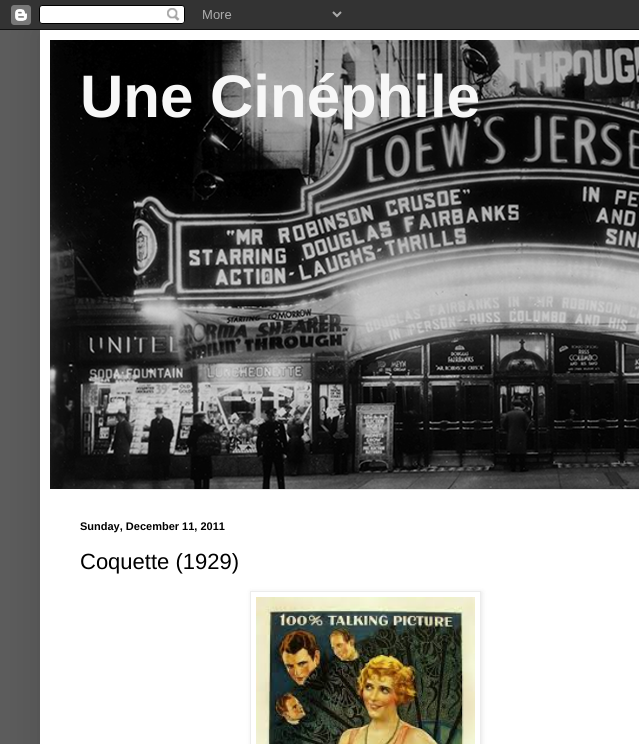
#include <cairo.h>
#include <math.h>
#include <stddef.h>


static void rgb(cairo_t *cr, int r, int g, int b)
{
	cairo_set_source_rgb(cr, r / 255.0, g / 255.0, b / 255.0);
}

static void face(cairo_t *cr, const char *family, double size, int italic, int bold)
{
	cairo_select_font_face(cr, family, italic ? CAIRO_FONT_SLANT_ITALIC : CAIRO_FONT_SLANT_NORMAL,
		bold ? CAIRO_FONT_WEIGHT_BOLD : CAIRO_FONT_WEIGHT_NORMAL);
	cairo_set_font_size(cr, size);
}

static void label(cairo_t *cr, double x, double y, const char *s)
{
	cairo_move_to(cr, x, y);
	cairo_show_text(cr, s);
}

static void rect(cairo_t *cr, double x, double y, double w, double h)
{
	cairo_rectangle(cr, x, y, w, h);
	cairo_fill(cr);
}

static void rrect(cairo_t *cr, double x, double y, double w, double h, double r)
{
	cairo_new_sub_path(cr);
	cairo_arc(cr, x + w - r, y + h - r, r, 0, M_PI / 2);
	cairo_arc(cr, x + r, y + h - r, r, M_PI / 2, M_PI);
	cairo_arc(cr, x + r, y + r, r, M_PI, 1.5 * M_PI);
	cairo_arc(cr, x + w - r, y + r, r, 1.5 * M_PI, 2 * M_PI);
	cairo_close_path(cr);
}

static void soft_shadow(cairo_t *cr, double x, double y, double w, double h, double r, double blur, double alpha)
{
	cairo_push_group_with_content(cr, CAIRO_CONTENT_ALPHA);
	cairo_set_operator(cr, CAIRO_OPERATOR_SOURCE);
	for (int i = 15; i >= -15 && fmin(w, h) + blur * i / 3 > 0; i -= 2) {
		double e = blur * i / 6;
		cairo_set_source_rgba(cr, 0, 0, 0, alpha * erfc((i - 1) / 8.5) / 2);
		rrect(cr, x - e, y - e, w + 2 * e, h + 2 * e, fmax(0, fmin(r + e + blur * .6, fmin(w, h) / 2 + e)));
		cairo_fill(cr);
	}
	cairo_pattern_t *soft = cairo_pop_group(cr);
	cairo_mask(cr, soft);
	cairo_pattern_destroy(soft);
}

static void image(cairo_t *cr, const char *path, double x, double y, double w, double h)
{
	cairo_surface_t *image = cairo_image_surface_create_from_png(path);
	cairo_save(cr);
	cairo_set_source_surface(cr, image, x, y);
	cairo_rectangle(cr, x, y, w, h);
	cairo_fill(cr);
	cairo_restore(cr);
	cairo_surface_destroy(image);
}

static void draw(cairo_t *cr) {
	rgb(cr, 92, 92, 92);
	cairo_paint(cr);
	rgb(cr, 0, 0, 0);
	soft_shadow(cr, 40, 30, 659, 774, 0, 20, 0.15);
	image(cr, "image0.png", 0, 0, 639, 30);
	rgb(cr, 255, 255, 255);
	rect(cr, 40, 30, 599, 714);
	image(cr, "image1.png", 50, 40, 589, 449);
	face(cr, "Liberation Sans", 60, 0, 1);
	rgb(cr, 247, 247, 247);
	label(cr, 80, 117, "Une Cinéphile");
	rgb(cr, 236, 236, 236);
	rect(cr, 80, 489, 559, 1);
	face(cr, "Liberation Sans", 11, 0, 1);
	rgb(cr, 0, 0, 0);
	label(cr, 80, 530, "Sunday, December 11, 2011");
	face(cr, "Liberation Sans", 22, 0, 0);
	label(cr, 80, 569, "Coquette (1929)");
	cairo_save(cr);
	cairo_set_fill_rule(cr, CAIRO_FILL_RULE_EVEN_ODD);
	cairo_new_path(cr);
	cairo_move_to(cr, 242, 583);
	cairo_line_to(cr, 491, 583);
	cairo_line_to(cr, 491, 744);
	cairo_line_to(cr, 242, 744);
	cairo_close_path(cr);
	cairo_move_to(cr, 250, 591);
	cairo_line_to(cr, 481, 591);
	cairo_line_to(cr, 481, 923);
	cairo_line_to(cr, 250, 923);
	cairo_close_path(cr);
	cairo_clip(cr);
	rgb(cr, 0, 0, 0);
	soft_shadow(cr, 251, 592, 231, 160, 0, 2.5, 0.1);
	cairo_restore(cr);
	cairo_rectangle(cr, 250.5, 591.5, 230, 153);
	rgb(cr, 236, 236, 236);
	cairo_set_line_width(cr, 1);
	cairo_stroke(cr);
	image(cr, "image2.png", 256, 597, 219, 147);
}

int main(void) {
	cairo_surface_t *surface = cairo_image_surface_create(CAIRO_FORMAT_RGB24, 639, 744);
	cairo_t *cr = cairo_create(surface);
	cairo_font_options_t *options = cairo_font_options_create();
	cairo_font_options_set_hint_metrics(options, CAIRO_HINT_METRICS_OFF);
	cairo_font_options_set_hint_style(options, CAIRO_HINT_STYLE_NONE);
	cairo_set_font_options(cr, options);
	cairo_set_miter_limit(cr, 4);
	draw(cr);
	cairo_surface_write_to_png(surface, "render.png");
	cairo_font_options_destroy(options);
	cairo_destroy(cr);
	cairo_surface_destroy(surface);
	return 0;
}
